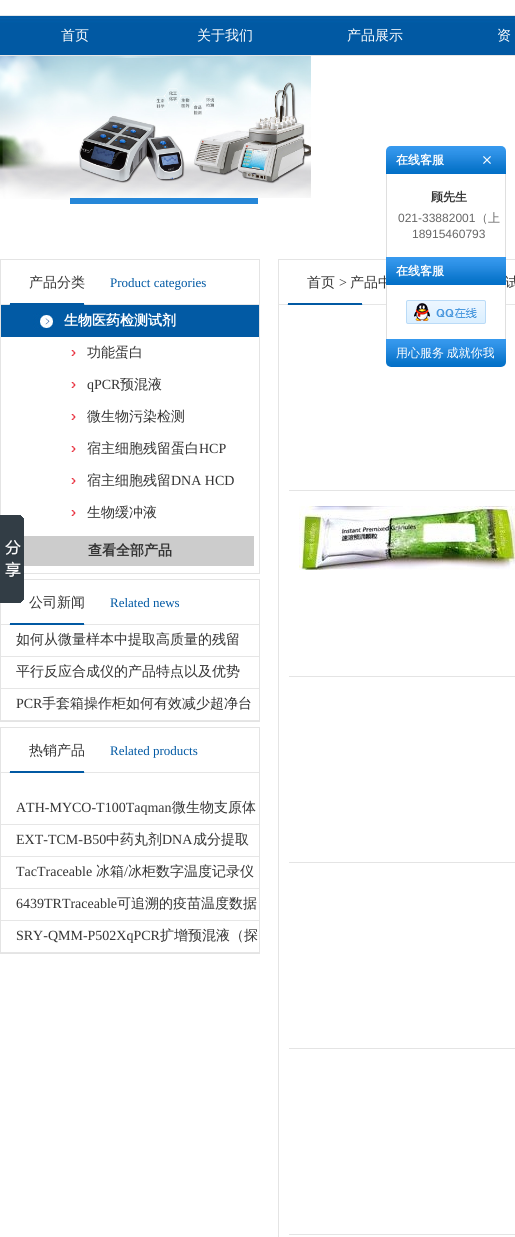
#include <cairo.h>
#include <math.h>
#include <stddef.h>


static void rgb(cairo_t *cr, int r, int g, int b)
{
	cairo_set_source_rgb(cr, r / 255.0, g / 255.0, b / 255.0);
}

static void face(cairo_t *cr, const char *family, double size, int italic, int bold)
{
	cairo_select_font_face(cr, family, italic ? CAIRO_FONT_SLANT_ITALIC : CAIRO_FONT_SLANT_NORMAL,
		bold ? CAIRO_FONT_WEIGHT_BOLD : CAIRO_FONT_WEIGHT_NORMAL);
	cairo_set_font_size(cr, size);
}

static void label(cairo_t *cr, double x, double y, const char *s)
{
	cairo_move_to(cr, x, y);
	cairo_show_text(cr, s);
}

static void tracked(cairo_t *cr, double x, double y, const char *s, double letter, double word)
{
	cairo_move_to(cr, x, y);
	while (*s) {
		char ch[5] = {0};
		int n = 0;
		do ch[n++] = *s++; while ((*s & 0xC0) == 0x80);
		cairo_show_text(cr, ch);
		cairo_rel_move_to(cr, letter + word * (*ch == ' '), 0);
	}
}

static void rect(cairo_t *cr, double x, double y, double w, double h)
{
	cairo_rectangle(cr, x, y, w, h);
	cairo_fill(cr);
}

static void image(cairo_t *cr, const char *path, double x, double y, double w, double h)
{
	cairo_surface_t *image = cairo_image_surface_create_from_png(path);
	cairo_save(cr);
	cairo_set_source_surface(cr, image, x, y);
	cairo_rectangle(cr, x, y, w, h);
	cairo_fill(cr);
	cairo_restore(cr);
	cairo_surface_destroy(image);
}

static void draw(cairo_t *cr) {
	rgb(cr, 255, 255, 255);
	cairo_paint(cr);
	image(cr, "image0.png", 0, 15, 515, 41);
	face(cr, "WenQuanYi Zen Hei Medium", 14, 0, 0);
	rgb(cr, 255, 255, 255);
	label(cr, 61, 40, "首页");
	label(cr, 197, 40, "关于我们");
	label(cr, 347, 40, "产品展示");
	label(cr, 497, 40, "资");
	image(cr, "image1.png", 0, 56, 51, 143);
	image(cr, "image2.png", 51, 56, 52, 144);
	image(cr, "image3.png", 103, 56, 52, 142);
	image(cr, "image4.png", 155, 56, 52, 142);
	image(cr, "image5.png", 207, 56, 52, 142);
	image(cr, "image6.png", 259, 56, 52, 142);
	rgb(cr, 38, 135, 216);
	rect(cr, 70, 198, 188, 6);
	cairo_rectangle(cr, 278.5, 259.5, 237, 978);
	rgb(cr, 228, 228, 228);
	cairo_set_line_width(cr, 1);
	cairo_stroke(cr);
	image(cr, "image16.png", 279, 303, 236, 2);
	rgb(cr, 51, 51, 51);
	label(cr, 350, 287, "产品中");
	label(cr, 505, 287, "试");
	rgb(cr, 255, 255, 255);
	rect(cr, 386, 259, 120, 46);
	image(cr, "image7.png", 386, 146, 120, 28);
	face(cr, "WenQuanYi Zen Hei", 12, 0, 1);
	label(cr, 396, 164, "在线客服");
	image(cr, "image8.png", 483, 156, 8, 8);
	rgb(cr, 223, 223, 223);
	rect(cr, 505, 174, 1, 83);
	rect(cr, 386, 174, 1, 83);
	rgb(cr, 51, 51, 51);
	label(cr, 431, 201, "顾先生");
	face(cr, "Liberation Sans", 12, 0, 0);
	rgb(cr, 102, 102, 102);
	label(cr, 398, 222, "021-33882001");
	face(cr, "WenQuanYi Zen Hei Medium", 12, 0, 0);
	label(cr, 476, 222, "（上");
	face(cr, "Liberation Sans", 12, 0, 0);
	label(cr, 412, 238, "18915460793");
	image(cr, "image9.png", 386, 257, 120, 28);
	face(cr, "WenQuanYi Zen Hei", 12, 0, 1);
	rgb(cr, 255, 255, 255);
	label(cr, 396, 275, "在线客服");
	rgb(cr, 223, 223, 223);
	rect(cr, 505, 285, 1, 54);
	rect(cr, 386, 285, 1, 54);
	image(cr, "image10.png", 406, 300, 80, 24);
	image(cr, "image11.png", 386, 339, 120, 28);
	face(cr, "WenQuanYi Zen Hei Medium", 12, 0, 0);
	rgb(cr, 255, 255, 255);
	tracked(cr, 396, 357, "用心服务 成就你我", 0, -1);
	cairo_rectangle(cr, 0.5, 259.5, 259, 314);
	rgb(cr, 228, 228, 228);
	cairo_stroke(cr);
	cairo_rectangle(cr, 0.5, 579.5, 259, 142);
	cairo_stroke(cr);
	image(cr, "image12.png", 0, 515, 24, 88);
	image(cr, "image13.png", 1, 303, 258, 2);
	face(cr, "WenQuanYi Zen Hei Medium", 14, 0, 0);
	rgb(cr, 51, 51, 51);
	label(cr, 29, 287, "产品分类");
	face(cr, "Liberation Serif", 13, 0, 0);
	rgb(cr, 0, 88, 163);
	label(cr, 110, 287, "Product categories");
	image(cr, "image14.png", 1, 305, 258, 32);
	face(cr, "WenQuanYi Zen Hei", 14, 0, 1);
	rgb(cr, 255, 255, 255);
	label(cr, 64, 325, "生物医药检测试剂");
	image(cr, "image15.png", 71, 350, 5, 6);
	face(cr, "WenQuanYi Zen Hei Medium", 14, 0, 0);
	rgb(cr, 51, 51, 51);
	label(cr, 87, 357, "功能蛋白");
	image(cr, "image15.png", 71, 382, 5, 6);
	face(cr, "Liberation Serif", 14, 0, 0);
	label(cr, 87, 389, "qPCR");
	face(cr, "WenQuanYi Zen Hei Medium", 14, 0, 0);
	label(cr, 120, 389, "预混液");
	image(cr, "image15.png", 71, 414, 5, 6);
	label(cr, 87, 421, "微生物污染检测");
	image(cr, "image15.png", 71, 446, 5, 6);
	label(cr, 87, 453, "宿主细胞残留蛋白");
	face(cr, "Liberation Serif", 14, 0, 0);
	label(cr, 199, 453, "HCP");
	image(cr, "image15.png", 71, 478, 5, 6);
	face(cr, "WenQuanYi Zen Hei Medium", 14, 0, 0);
	label(cr, 87, 485, "宿主细胞残留");
	face(cr, "Liberation Serif", 14, 0, 0);
	label(cr, 171, 485, "DNA HCD");
	image(cr, "image15.png", 71, 510, 5, 6);
	face(cr, "WenQuanYi Zen Hei Medium", 14, 0, 0);
	label(cr, 87, 517, "生物缓冲液");
	rgb(cr, 204, 204, 204);
	rect(cr, 24, 536, 230, 30);
	face(cr, "WenQuanYi Zen Hei", 14, 0, 1);
	rgb(cr, 51, 51, 51);
	label(cr, 88, 555, "查看全部产品");
	image(cr, "image13.png", 1, 623, 258, 2);
	face(cr, "WenQuanYi Zen Hei Medium", 14, 0, 0);
	label(cr, 29, 607, "公司新闻");
	face(cr, "Liberation Serif", 13, 0, 0);
	rgb(cr, 0, 88, 163);
	label(cr, 110, 607, "Related news");
	rgb(cr, 230, 230, 230);
	rect(cr, 1, 656, 258, 1);
	face(cr, "WenQuanYi Zen Hei Medium", 14, 0, 0);
	rgb(cr, 51, 51, 51);
	label(cr, 16, 644, "如何从微量样本中提取高质量的残留");
	rgb(cr, 230, 230, 230);
	rect(cr, 1, 688, 258, 1);
	rgb(cr, 51, 51, 51);
	label(cr, 16, 676, "平行反应合成仪的产品特点以及优势");
	rgb(cr, 230, 230, 230);
	rect(cr, 1, 720, 258, 1);
	face(cr, "Liberation Serif", 14, 0, 0);
	rgb(cr, 51, 51, 51);
	label(cr, 16, 708, "PCR");
	face(cr, "WenQuanYi Zen Hei Medium", 14, 0, 0);
	label(cr, 42, 708, "手套箱操作柜如何有效减少超净台");
	cairo_rectangle(cr, 0.5, 727.5, 259, 226);
	rgb(cr, 228, 228, 228);
	cairo_stroke(cr);
	image(cr, "image13.png", 1, 771, 258, 2);
	rgb(cr, 51, 51, 51);
	label(cr, 29, 755, "热销产品");
	face(cr, "Liberation Serif", 13, 0, 0);
	rgb(cr, 0, 88, 163);
	label(cr, 110, 755, "Related products");
	rgb(cr, 230, 230, 230);
	rect(cr, 1, 824, 258, 1);
	face(cr, "Liberation Serif", 14, 0, 0);
	rgb(cr, 51, 51, 51);
	label(cr, 16, 812, "ATH-MYCO-T100Taqman");
	face(cr, "WenQuanYi Zen Hei Medium", 14, 0, 0);
	label(cr, 172, 812, "微生物支原体");
	rgb(cr, 230, 230, 230);
	rect(cr, 1, 856, 258, 1);
	face(cr, "Liberation Serif", 14, 0, 0);
	rgb(cr, 51, 51, 51);
	label(cr, 16, 844, "EXT-TCM-B50");
	face(cr, "WenQuanYi Zen Hei Medium", 14, 0, 0);
	label(cr, 106, 844, "中药丸剂");
	face(cr, "Liberation Serif", 14, 0, 0);
	label(cr, 162, 844, "DNA");
	face(cr, "WenQuanYi Zen Hei Medium", 14, 0, 0);
	label(cr, 193, 844, "成分提取");
	rgb(cr, 230, 230, 230);
	rect(cr, 1, 888, 258, 1);
	face(cr, "Liberation Serif", 14, 0, 0);
	rgb(cr, 51, 51, 51);
	label(cr, 16, 876, "TacTraceable");
	face(cr, "WenQuanYi Zen Hei Medium", 14, 0, 0);
	label(cr, 96, 876, "冰箱");
	face(cr, "Liberation Serif", 14, 0, 0);
	label(cr, 124, 876, "/");
	face(cr, "WenQuanYi Zen Hei Medium", 14, 0, 0);
	label(cr, 128, 876, "冰柜数字温度记录仪");
	rgb(cr, 230, 230, 230);
	rect(cr, 1, 920, 258, 1);
	face(cr, "Liberation Serif", 14, 0, 0);
	rgb(cr, 51, 51, 51);
	label(cr, 16, 908, "6439TRTraceable");
	face(cr, "WenQuanYi Zen Hei Medium", 14, 0, 0);
	label(cr, 117, 908, "可追溯的疫苗温度数据");
	rgb(cr, 230, 230, 230);
	rect(cr, 1, 952, 258, 1);
	face(cr, "Liberation Serif", 14, 0, 0);
	rgb(cr, 51, 51, 51);
	label(cr, 16, 940, "SRY-QMM-P502XqPCR");
	face(cr, "WenQuanYi Zen Hei Medium", 14, 0, 0);
	label(cr, 160, 940, "扩增预混液（探");
	label(cr, 307, 287, "首页");
	face(cr, "Liberation Serif", 14, 0, 0);
	label(cr, 339, 287, ">");
	rgb(cr, 228, 228, 228);
	rect(cr, 289, 490, 226, 1);
	rect(cr, 289, 676, 226, 1);
	image(cr, "image17.png", 299, 506, 216, 64);
	rect(cr, 289, 862, 226, 1);
	rect(cr, 289, 1048, 226, 1);
	rect(cr, 289, 1234, 226, 1);
}

int main(void) {
	cairo_surface_t *surface = cairo_image_surface_create(CAIRO_FORMAT_RGB24, 515, 1237);
	cairo_t *cr = cairo_create(surface);
	cairo_font_options_t *options = cairo_font_options_create();
	cairo_font_options_set_hint_metrics(options, CAIRO_HINT_METRICS_OFF);
	cairo_font_options_set_hint_style(options, CAIRO_HINT_STYLE_NONE);
	cairo_set_font_options(cr, options);
	cairo_set_miter_limit(cr, 4);
	draw(cr);
	cairo_surface_write_to_png(surface, "render.png");
	cairo_font_options_destroy(options);
	cairo_destroy(cr);
	cairo_surface_destroy(surface);
	return 0;
}
